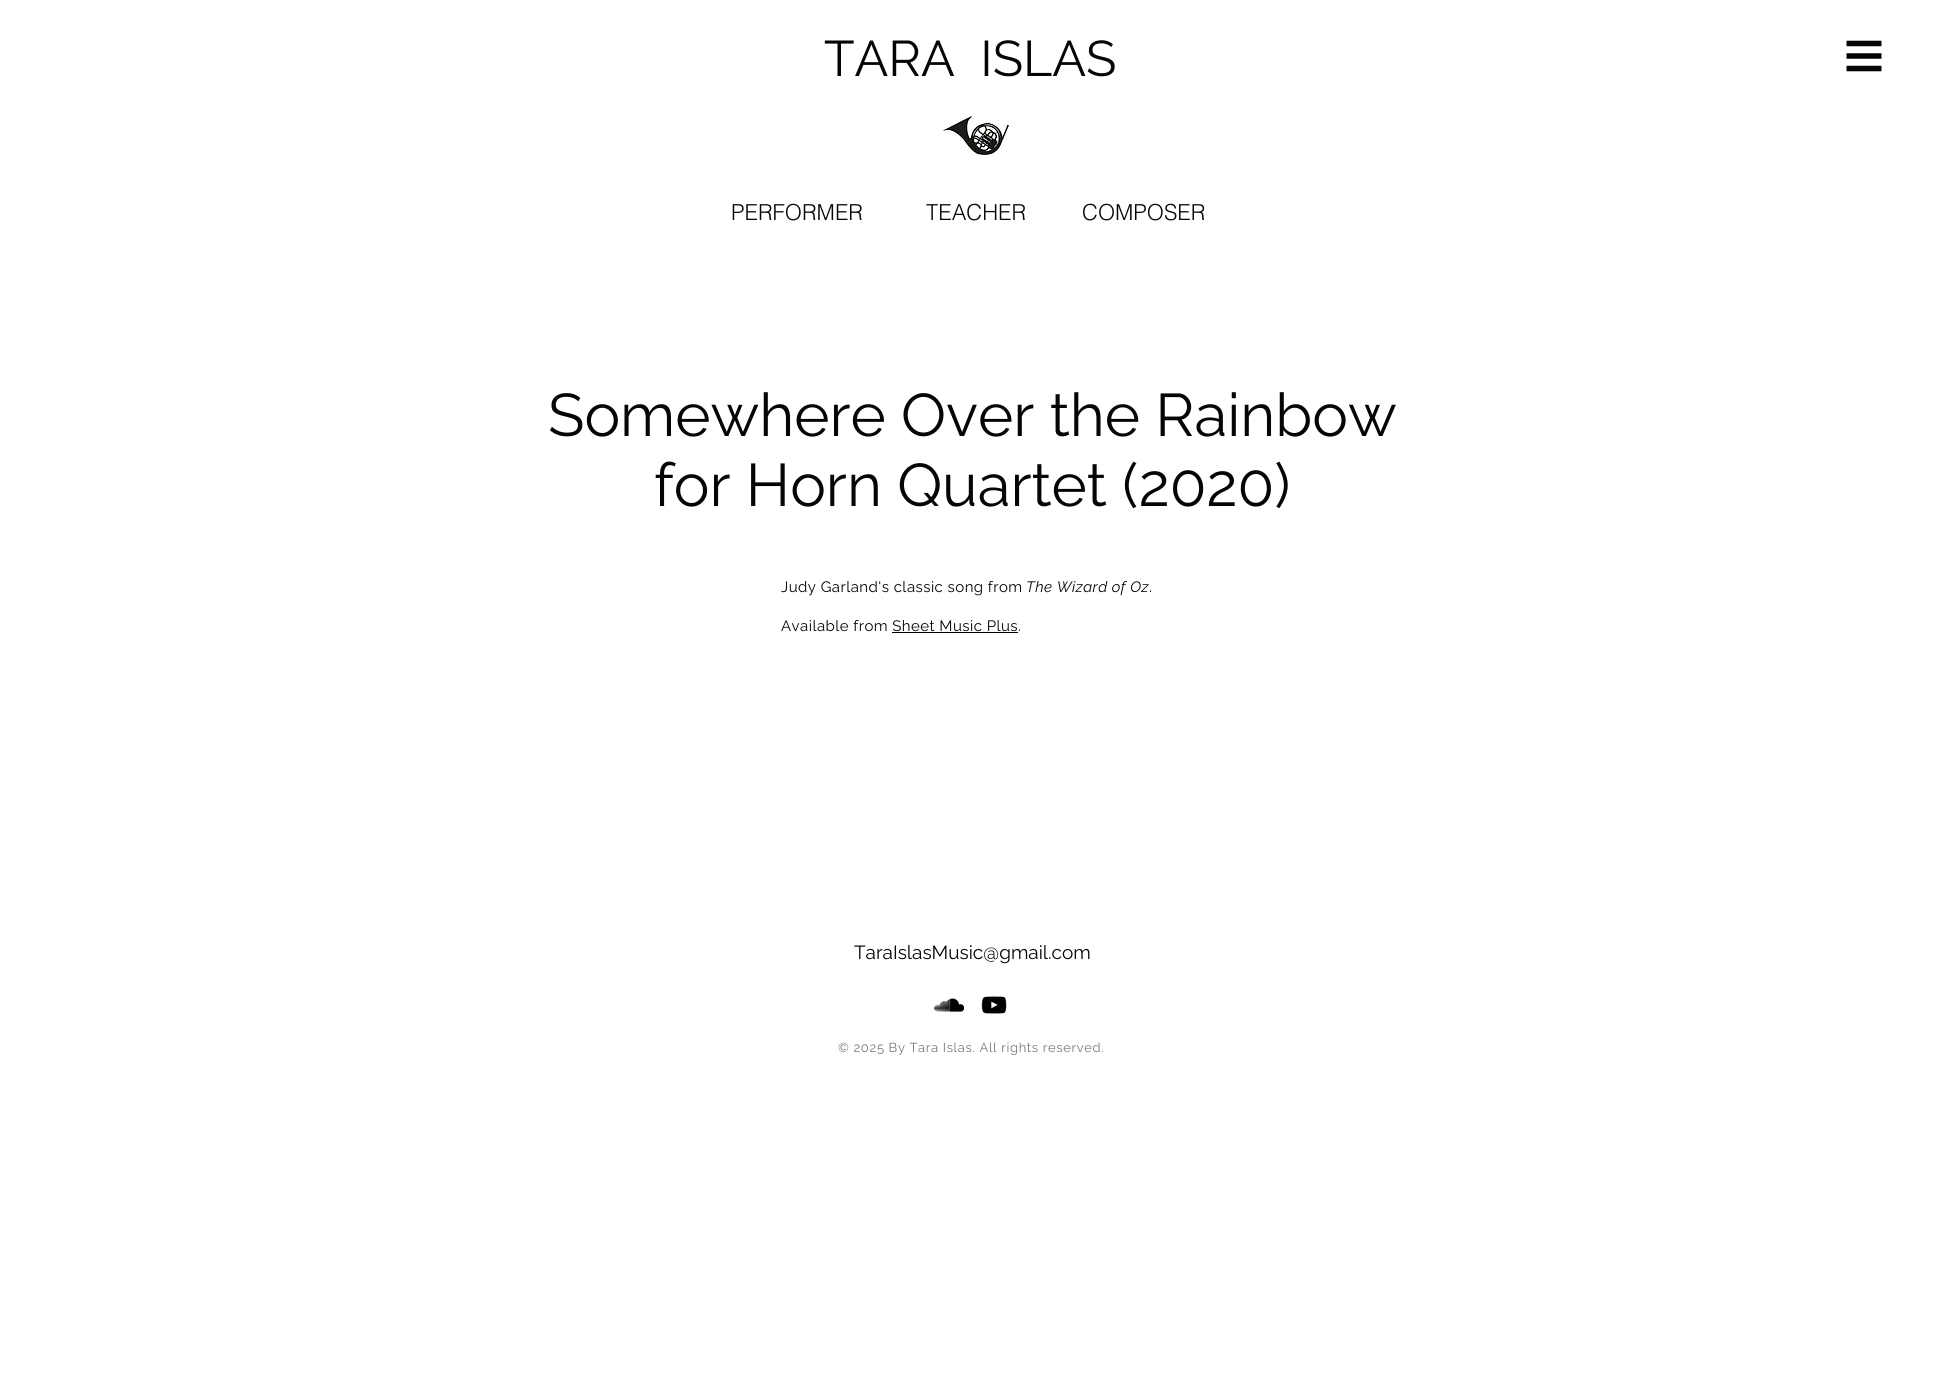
#include <cairo.h>
#include <math.h>
#include <stddef.h>


static void rgb(cairo_t *cr, int r, int g, int b)
{
	cairo_set_source_rgb(cr, r / 255.0, g / 255.0, b / 255.0);
}

static void face(cairo_t *cr, const char *family, double size, int italic, int bold)
{
	cairo_select_font_face(cr, family, italic ? CAIRO_FONT_SLANT_ITALIC : CAIRO_FONT_SLANT_NORMAL,
		bold ? CAIRO_FONT_WEIGHT_BOLD : CAIRO_FONT_WEIGHT_NORMAL);
	cairo_set_font_size(cr, size);
}

static void label(cairo_t *cr, double x, double y, const char *s)
{
	cairo_move_to(cr, x, y);
	cairo_show_text(cr, s);
}

static void tracked(cairo_t *cr, double x, double y, const char *s, double letter, double word)
{
	cairo_move_to(cr, x, y);
	while (*s) {
		char ch[5] = {0};
		int n = 0;
		do ch[n++] = *s++; while ((*s & 0xC0) == 0x80);
		cairo_show_text(cr, ch);
		cairo_rel_move_to(cr, letter + word * (*ch == ' '), 0);
	}
}

static void rect(cairo_t *cr, double x, double y, double w, double h)
{
	cairo_rectangle(cr, x, y, w, h);
	cairo_fill(cr);
}

static void image(cairo_t *cr, const char *path, double x, double y, double w, double h)
{
	cairo_surface_t *image = cairo_image_surface_create_from_png(path);
	cairo_save(cr);
	cairo_set_source_surface(cr, image, x, y);
	cairo_rectangle(cr, x, y, w, h);
	cairo_fill(cr);
	cairo_restore(cr);
	cairo_surface_destroy(image);
}

static void draw(cairo_t *cr) {
	rgb(cr, 255, 255, 255);
	cairo_paint(cr);
	face(cr, "Raleway", 50, 0, 0);
	rgb(cr, 5, 5, 5);
	label(cr, 824, 76, "TARA  ISLAS");
	image(cr, "image0.png", 943, 116, 66, 39);
	face(cr, "helvetica Light", 22, 0, 0);
	label(cr, 731, 220, "PERFORMER");
	label(cr, 926, 220, "TEACHER");
	label(cr, 1082, 220, "COMPOSER");
	image(cr, "image1.png", 1846, 40, 36, 32);
	face(cr, "Raleway", 60, 0, 0);
	label(cr, 548, 436, "Somewhere Over the Rainbow");
	label(cr, 654, 506, "for Horn Quartet (2020)");
	face(cr, "Raleway", 15, 0, 0);
	tracked(cr, 781, 592, "Judy Garland's classic song from", 0.45, 0);
	face(cr, "Raleway", 15, 1, 0);
	tracked(cr, 1026, 592, "The Wizard of Oz", 0.45, 0);
	face(cr, "Raleway", 15, 0, 0);
	tracked(cr, 1149, 592, ".", 0.45, 0);
	tracked(cr, 781, 631, "Available from Sheet Music Plus.", 0.45, 0);
	rgb(cr, 0, 0, 0);
	rect(cr, 892, 632, 126, 1);
	face(cr, "Raleway", 19, 0, 0);
	rgb(cr, 5, 5, 5);
	label(cr, 854, 959, "TaraIslasMusic@gmail.com");
	image(cr, "image2.png", 934, 998, 30, 14);
	image(cr, "image3.png", 981, 996, 26, 18);
	face(cr, "Raleway", 13, 0, 0);
	rgb(cr, 121, 121, 121);
	tracked(cr, 838, 1052, "© 2025 By Tara Islas. All rights reserved.", 0.65, 0);
}

int main(void) {
	cairo_surface_t *surface = cairo_image_surface_create(CAIRO_FORMAT_RGB24, 1945, 1400);
	cairo_t *cr = cairo_create(surface);
	cairo_font_options_t *options = cairo_font_options_create();
	cairo_font_options_set_hint_metrics(options, CAIRO_HINT_METRICS_OFF);
	cairo_font_options_set_hint_style(options, CAIRO_HINT_STYLE_NONE);
	cairo_set_font_options(cr, options);
	cairo_set_miter_limit(cr, 4);
	draw(cr);
	cairo_surface_write_to_png(surface, "render.png");
	cairo_font_options_destroy(options);
	cairo_destroy(cr);
	cairo_surface_destroy(surface);
	return 0;
}
